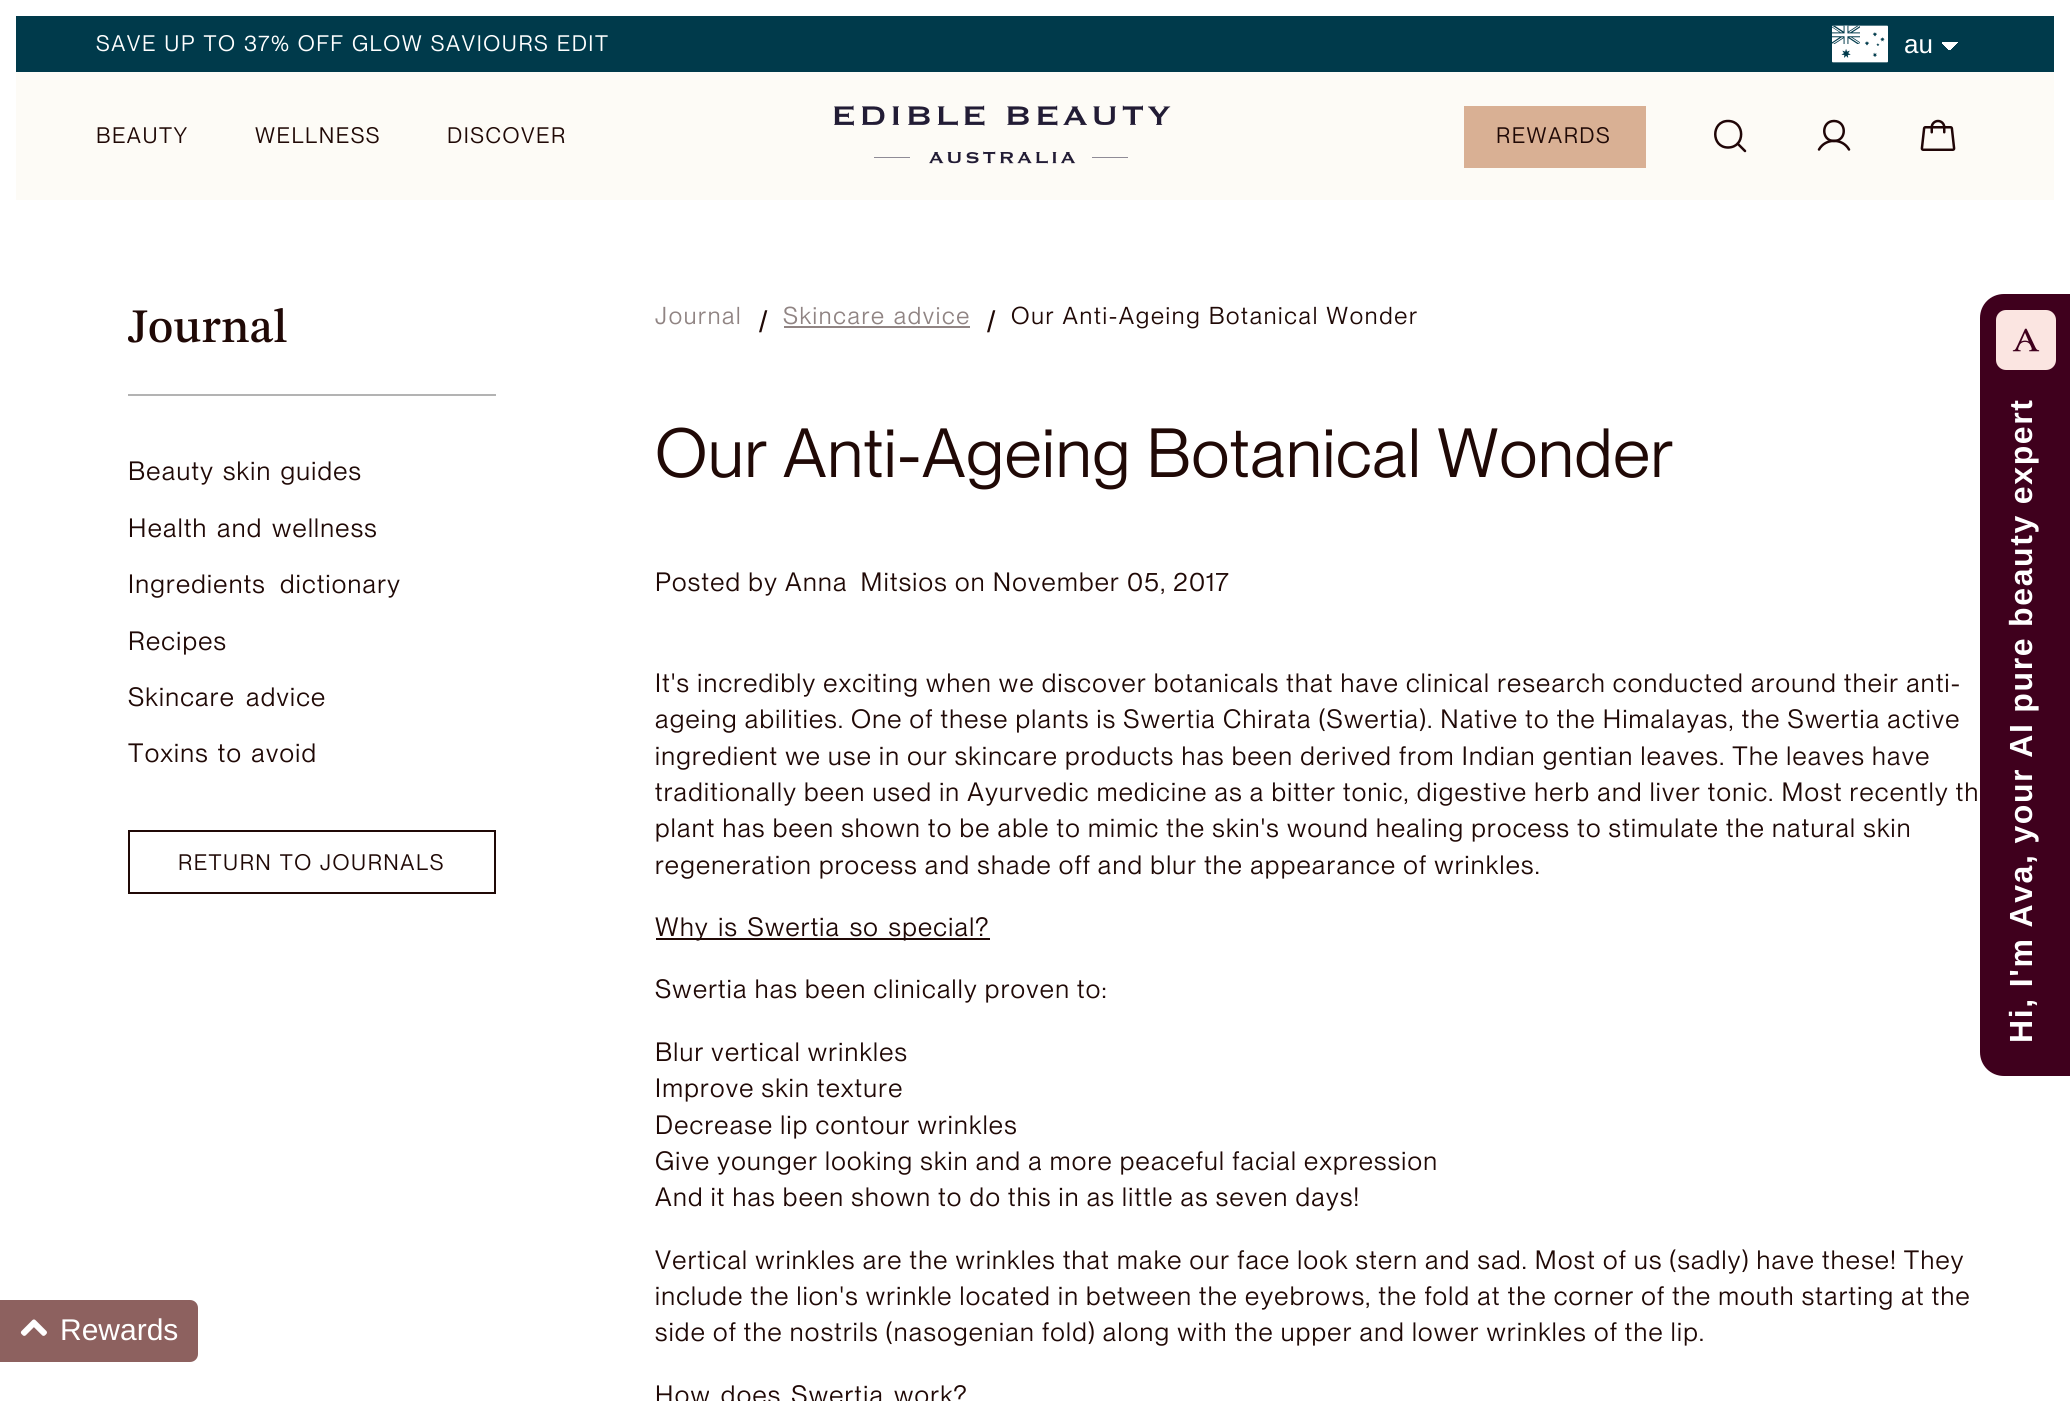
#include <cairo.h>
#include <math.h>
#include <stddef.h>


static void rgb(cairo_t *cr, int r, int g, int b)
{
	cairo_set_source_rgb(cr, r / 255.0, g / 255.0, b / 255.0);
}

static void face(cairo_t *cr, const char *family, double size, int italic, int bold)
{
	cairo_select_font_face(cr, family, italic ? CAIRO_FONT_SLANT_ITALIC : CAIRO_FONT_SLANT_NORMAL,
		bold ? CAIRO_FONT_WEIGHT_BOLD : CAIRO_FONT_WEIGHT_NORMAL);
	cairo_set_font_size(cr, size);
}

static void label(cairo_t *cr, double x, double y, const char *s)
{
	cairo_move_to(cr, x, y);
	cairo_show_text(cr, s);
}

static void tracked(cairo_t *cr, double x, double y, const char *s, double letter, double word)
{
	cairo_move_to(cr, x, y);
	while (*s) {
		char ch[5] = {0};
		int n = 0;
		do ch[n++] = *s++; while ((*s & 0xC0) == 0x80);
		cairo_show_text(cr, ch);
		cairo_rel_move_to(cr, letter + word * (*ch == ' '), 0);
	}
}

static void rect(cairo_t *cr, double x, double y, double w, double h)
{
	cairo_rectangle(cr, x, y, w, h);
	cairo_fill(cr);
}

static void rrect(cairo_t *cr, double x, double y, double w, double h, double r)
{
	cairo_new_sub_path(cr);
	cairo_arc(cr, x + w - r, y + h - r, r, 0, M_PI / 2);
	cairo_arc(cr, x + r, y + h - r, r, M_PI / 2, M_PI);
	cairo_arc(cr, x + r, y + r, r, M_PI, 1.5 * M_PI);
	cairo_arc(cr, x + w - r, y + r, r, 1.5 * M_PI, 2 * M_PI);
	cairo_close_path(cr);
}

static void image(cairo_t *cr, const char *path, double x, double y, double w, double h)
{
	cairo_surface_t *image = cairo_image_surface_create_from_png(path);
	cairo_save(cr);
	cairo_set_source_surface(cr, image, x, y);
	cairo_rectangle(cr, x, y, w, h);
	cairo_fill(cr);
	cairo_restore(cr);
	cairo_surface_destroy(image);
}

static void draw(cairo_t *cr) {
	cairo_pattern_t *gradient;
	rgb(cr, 255, 255, 255);
	cairo_paint(cr);
	rgb(cr, 0, 58, 75);
	rect(cr, 16, 16, 2038, 56);
	face(cr, "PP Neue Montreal", 22, 1, 0);
	rgb(cr, 255, 255, 255);
	tracked(cr, 96, 51, "SAVE UP TO 37% OFF GLOW SAVIOURS EDIT", 1.55, 1.25);
	image(cr, "image0.png", 1832, 25, 56, 38);
	gradient = cairo_pattern_create_linear(1950, 43, 1958, 51);
	cairo_pattern_add_color_stop_rgba(gradient, 0.5, 1, 1, 1, 1);
	cairo_pattern_add_color_stop_rgba(gradient, 0.5, 0, 0.227, 0.294, 1);
	cairo_set_source(cr, gradient);
	cairo_pattern_destroy(gradient);
	rect(cr, 1950, 42, 8, 8);
	gradient = cairo_pattern_create_linear(1942, 51, 1950, 43);
	cairo_pattern_add_color_stop_rgba(gradient, 0.5, 0, 0.227, 0.294, 1);
	cairo_pattern_add_color_stop_rgba(gradient, 0.5, 1, 1, 1, 1);
	cairo_set_source(cr, gradient);
	cairo_pattern_destroy(gradient);
	rect(cr, 1942, 42, 8, 8);
	face(cr, "Liberation Sans", 26, 0, 0);
	rgb(cr, 255, 255, 255);
	label(cr, 1904, 53, "au");
	rgb(cr, 253, 251, 246);
	rect(cr, 16, 72, 2038, 128);
	face(cr, "PP Neue Montreal", 22, 1, 0);
	rgb(cr, 32, 9, 6);
	tracked(cr, 96, 143, "BEAUTY", 1.55, 0);
	tracked(cr, 255, 143, "WELLNESS", 1.55, 0);
	tracked(cr, 447, 143, "DISCOVER", 1.55, 0);
	image(cr, "image1.png", 834, 105, 337, 59);
	rgb(cr, 217, 176, 148);
	rect(cr, 1464, 106, 182, 62);
	rgb(cr, 32, 9, 6);
	tracked(cr, 1496, 143, "REWARDS", 1.55, 0);
	cairo_new_path(cr);
	cairo_move_to(cr, 1728, 147.5);
	cairo_curve_to(cr, 1745.5, 147.5, 1745.5, 121, 1728, 121);
	cairo_curve_to(cr, 1711, 121, 1711, 147.5, 1728, 147.5);
	cairo_close_path(cr);
	cairo_move_to(cr, 1737.5, 143.5);
	cairo_line_to(cr, 1745, 151);
	rgb(cr, 32, 6, 7);
	cairo_set_line_width(cr, 2.5);
	cairo_set_line_cap(cr, CAIRO_LINE_CAP_ROUND);
	cairo_set_line_join(cr, CAIRO_LINE_JOIN_ROUND);
	cairo_stroke(cr);
	cairo_new_path(cr);
	cairo_move_to(cr, 1834, 141);
	cairo_curve_to(cr, 1847, 141, 1847, 121, 1834, 121);
	cairo_curve_to(cr, 1821, 121, 1821, 141, 1834, 141);
	cairo_close_path(cr);
	cairo_set_line_cap(cr, CAIRO_LINE_CAP_BUTT);
	cairo_set_line_join(cr, CAIRO_LINE_JOIN_MITER);
	cairo_stroke(cr);
	cairo_new_path(cr);
	cairo_move_to(cr, 1819, 149.5);
	cairo_curve_to(cr, 1825.5, 138, 1842.5, 138, 1849, 149.5);
	cairo_set_line_cap(cr, CAIRO_LINE_CAP_ROUND);
	cairo_set_line_join(cr, CAIRO_LINE_JOIN_ROUND);
	cairo_stroke(cr);
	image(cr, "image2.png", 1920, 119, 36, 32);
	rgb(cr, 179, 179, 179);
	rect(cr, 128, 394, 368, 2);
	face(cr, "STIX Two Text Medium", 48, 0, 0);
	rgb(cr, 32, 9, 6);
	label(cr, 128, 342, "Journal");
	face(cr, "PP Neue Montreal", 26, 1, 0);
	tracked(cr, 128, 480, "Beauty skin guides", 1.3, 2);
	tracked(cr, 128, 537, "Health and wellness", 1.3, 2.5);
	tracked(cr, 128, 593, "Ingredients dictionary", 1.3, 7);
	tracked(cr, 128, 650, "Recipes", 1.3, 0);
	tracked(cr, 128, 706, "Skincare advice", 1.3, 4);
	tracked(cr, 128, 762, "Toxins to avoid", 1.3, 2);
	cairo_rectangle(cr, 129, 831, 366, 62);
	cairo_set_line_width(cr, 2);
	cairo_set_line_cap(cr, CAIRO_LINE_CAP_BUTT);
	cairo_set_line_join(cr, CAIRO_LINE_JOIN_MITER);
	cairo_stroke(cr);
	face(cr, "PP Neue Montreal", 22, 1, 0);
	tracked(cr, 178, 870, "RETURN TO JOURNALS", 1.55, 1);
	face(cr, "PP Neue Montreal", 24, 1, 0);
	rgb(cr, 144, 132, 131);
	tracked(cr, 655, 324, "Journal", 1.7, 0);
	face(cr, "Liberation Sans", 30, 0, 0);
	rgb(cr, 32, 9, 6);
	label(cr, 759, 332, "/");
	face(cr, "PP Neue Montreal", 24, 1, 0);
	rgb(cr, 144, 132, 131);
	tracked(cr, 783, 324, "Skincare advice", 1.7, 1);
	rect(cr, 784, 326, 186, 2);
	face(cr, "Liberation Sans", 30, 0, 0);
	rgb(cr, 32, 9, 6);
	label(cr, 987, 332, "/");
	face(cr, "PP Neue Montreal", 24, 1, 0);
	tracked(cr, 1011, 324, "Our Anti-Ageing Botanical Wonder", 1.7, 0.5);
	face(cr, "PP Neue Montreal", 68, 1, 0);
	tracked(cr, 655, 477, "Our Anti-Ageing Botanical Wonder", 0.7, 0);
	face(cr, "PP Neue Montreal", 26, 1, 0);
	tracked(cr, 655, 591, "Posted by", 1.3, 0);
	tracked(cr, 785, 591, "Anna Mitsios", 1.3, 6);
	tracked(cr, 955, 591, "on November 05, 2017", 1.3, 0);
	tracked(cr, 655, 692, "It's incredibly exciting when we discover botanicals that have clinical research conducted around their anti-", 1.3, 0);
	tracked(cr, 655, 728, "ageing abilities. One of these plants is Swertia Chirata (Swertia). Native to the Himalayas, the Swertia active", 1.3, 0);
	tracked(cr, 655, 765, "ingredient we use in our skincare products has been derived from Indian gentian leaves. The leaves have", 1.3, 0);
	tracked(cr, 655, 801, "traditionally been used in Ayurvedic medicine as a bitter tonic, digestive herb and liver tonic. Most recently th", 1.3, 0);
	tracked(cr, 655, 837, "plant has been shown to be able to mimic the skin's wound healing process to stimulate the natural skin", 1.3, 0);
	tracked(cr, 655, 874, "regeneration process and shade off and blur the appearance of wrinkles.", 1.3, 0);
	rect(cr, 656, 938, 334, 2);
	tracked(cr, 655, 936, "Why is Swertia so special?", 1.3, 2.5);
	tracked(cr, 655, 998, "Swertia has been clinically proven to:", 1.3, 0);
	tracked(cr, 655, 1061, "Blur vertical wrinkles", 1.3, 0);
	tracked(cr, 655, 1097, "Improve skin texture", 1.3, 0);
	tracked(cr, 655, 1134, "Decrease lip contour wrinkles", 1.3, 0);
	tracked(cr, 655, 1170, "Give younger looking skin and a more peaceful facial expression", 1.3, 0);
	tracked(cr, 655, 1206, "And it has been shown to do this in as little as seven days!", 1.3, 0);
	tracked(cr, 655, 1269, "Vertical wrinkles are the wrinkles that make our face look stern and sad. Most of us (sadly) have these! They", 1.3, 0);
	tracked(cr, 655, 1305, "include the lion's wrinkle located in between the eyebrows, the fold at the corner of the mouth starting at the", 1.3, 0);
	tracked(cr, 655, 1341, "side of the nostrils (nasogenian fold) along with the upper and lower wrinkles of the lip.", 1.3, 0);
	tracked(cr, 655, 1404, "How does Swertia work?", 1.3, 3);
	rgb(cr, 63, 0, 29);
	cairo_new_path(cr);
	cairo_move_to(cr, 2004, 294);
	cairo_line_to(cr, 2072, 294);
	cairo_line_to(cr, 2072, 1076);
	cairo_line_to(cr, 2004, 1076);
	cairo_curve_to(cr, 1990.5, 1076, 1980, 1065.5, 1980, 1052);
	cairo_line_to(cr, 1980, 318);
	cairo_curve_to(cr, 1980, 304.5, 1990.5, 294, 2004, 294);
	cairo_close_path(cr);
	cairo_fill(cr);
	rgb(cr, 251, 229, 225);
	rrect(cr, 1996, 310, 60, 60, 10);
	cairo_fill(cr);
	image(cr, "image3.png", 2012, 328, 28, 24);
	face(cr, "Liberation Sans", 32, 0, 1);
	rgb(cr, 255, 255, 255);
	cairo_save(cr);
	cairo_translate(cr, 2032, 1043);
	cairo_rotate(cr, -90 * M_PI / 180);
	tracked(cr, 0, 0, "Hi, I'm Ava, your AI pure beauty expert", 1.6, -0.5);
	cairo_restore(cr);
	rgb(cr, 141, 97, 95);
	cairo_new_path(cr);
	cairo_move_to(cr, 0, 1300);
	cairo_line_to(cr, 190, 1300);
	cairo_curve_to(cr, 194.5, 1300, 198, 1303.5, 198, 1308);
	cairo_line_to(cr, 198, 1354);
	cairo_curve_to(cr, 198, 1358.5, 194.5, 1362, 190, 1362);
	cairo_line_to(cr, 0, 1362);
	cairo_close_path(cr);
	cairo_fill(cr);
	image(cr, "image4.png", 20, 1319, 27, 17);
	face(cr, "Liberation Sans", 30, 0, 0);
	rgb(cr, 255, 255, 255);
	label(cr, 60, 1340, "Rewards");
}

int main(void) {
	cairo_surface_t *surface = cairo_image_surface_create(CAIRO_FORMAT_RGB24, 2070, 1401);
	cairo_t *cr = cairo_create(surface);
	cairo_font_options_t *options = cairo_font_options_create();
	cairo_font_options_set_hint_metrics(options, CAIRO_HINT_METRICS_OFF);
	cairo_font_options_set_hint_style(options, CAIRO_HINT_STYLE_NONE);
	cairo_set_font_options(cr, options);
	cairo_set_miter_limit(cr, 4);
	draw(cr);
	cairo_surface_write_to_png(surface, "render.png");
	cairo_font_options_destroy(options);
	cairo_destroy(cr);
	cairo_surface_destroy(surface);
	return 0;
}
